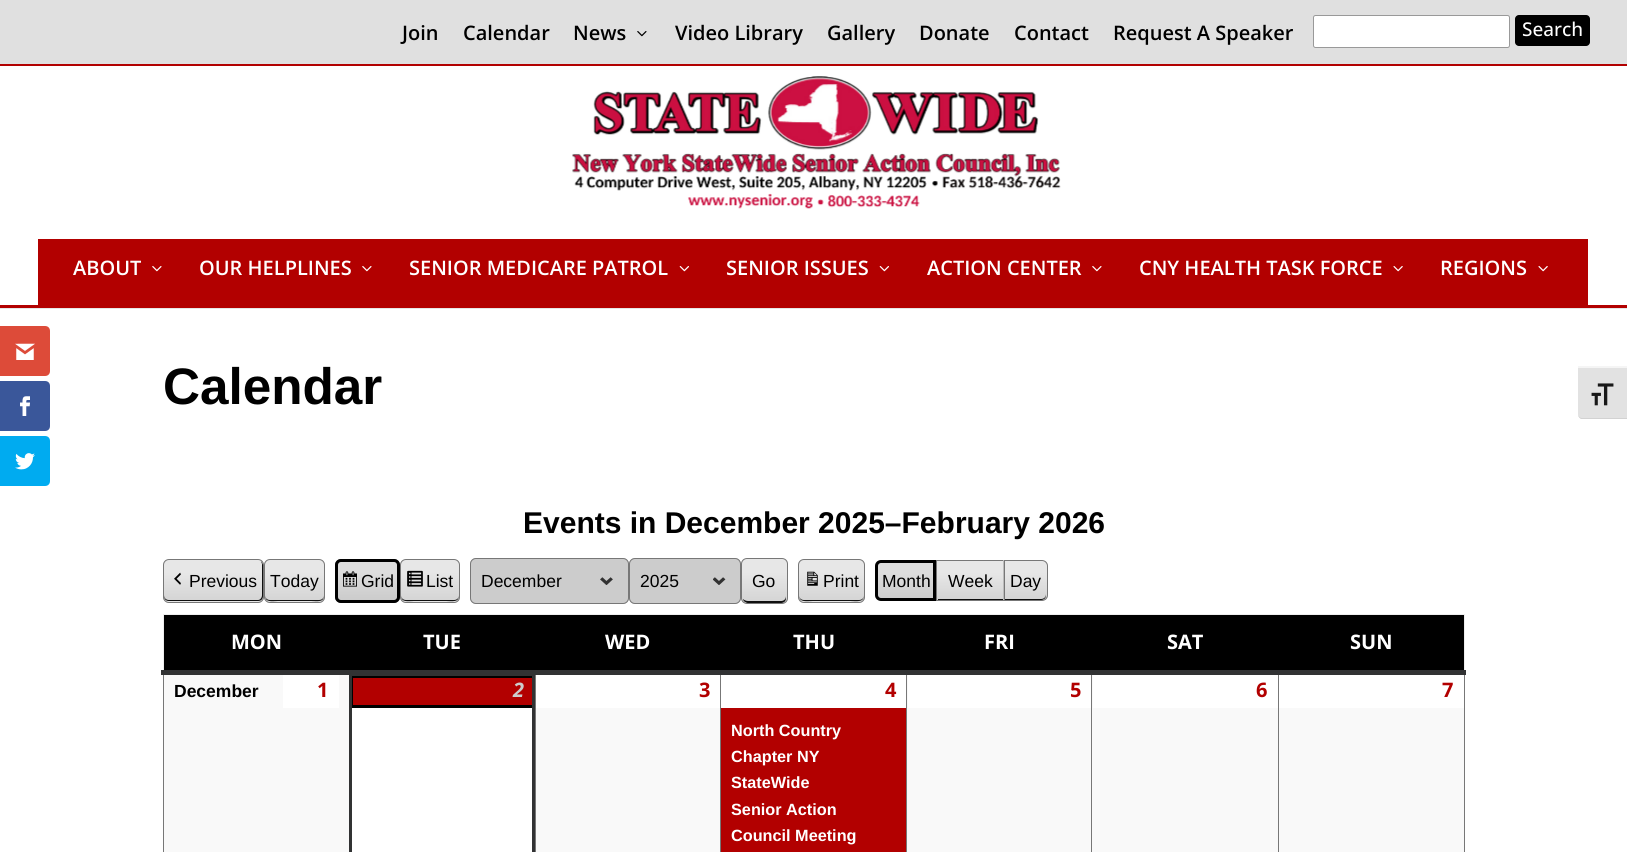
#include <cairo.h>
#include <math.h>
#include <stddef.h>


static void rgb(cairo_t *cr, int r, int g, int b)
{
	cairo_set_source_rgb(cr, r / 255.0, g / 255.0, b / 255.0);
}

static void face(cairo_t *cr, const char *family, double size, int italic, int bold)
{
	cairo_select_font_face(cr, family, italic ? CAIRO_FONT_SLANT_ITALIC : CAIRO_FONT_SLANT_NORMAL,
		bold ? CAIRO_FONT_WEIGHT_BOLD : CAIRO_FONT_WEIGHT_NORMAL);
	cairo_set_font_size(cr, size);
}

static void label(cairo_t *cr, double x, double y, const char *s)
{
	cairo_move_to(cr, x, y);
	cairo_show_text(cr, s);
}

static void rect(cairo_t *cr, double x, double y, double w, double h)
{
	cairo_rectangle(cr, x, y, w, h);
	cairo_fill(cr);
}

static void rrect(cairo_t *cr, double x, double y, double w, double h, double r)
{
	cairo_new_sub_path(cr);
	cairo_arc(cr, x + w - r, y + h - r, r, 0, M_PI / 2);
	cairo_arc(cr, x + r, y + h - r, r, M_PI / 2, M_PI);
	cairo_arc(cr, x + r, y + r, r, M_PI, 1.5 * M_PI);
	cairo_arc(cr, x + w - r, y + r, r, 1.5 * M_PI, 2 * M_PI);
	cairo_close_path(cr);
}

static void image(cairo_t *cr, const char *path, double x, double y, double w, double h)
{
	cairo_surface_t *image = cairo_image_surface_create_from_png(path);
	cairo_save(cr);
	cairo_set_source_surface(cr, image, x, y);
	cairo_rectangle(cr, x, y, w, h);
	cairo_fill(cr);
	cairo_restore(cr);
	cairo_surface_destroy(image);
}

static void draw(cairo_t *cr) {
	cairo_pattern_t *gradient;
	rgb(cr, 224, 224, 224);
	cairo_paint(cr);
	rgb(cr, 255, 255, 255);
	rect(cr, 0, 309, 1627, 543);
	rgb(cr, 221, 75, 57);
	cairo_new_path(cr);
	cairo_move_to(cr, 0, 326);
	cairo_line_to(cr, 45, 326);
	cairo_curve_to(cr, 48, 326, 50, 328, 50, 331);
	cairo_line_to(cr, 50, 371);
	cairo_curve_to(cr, 50, 374, 48, 376, 45, 376);
	cairo_line_to(cr, 0, 376);
	cairo_close_path(cr);
	cairo_fill(cr);
	image(cr, "image0.png", 15, 343, 20, 17);
	rgb(cr, 58, 87, 154);
	cairo_new_path(cr);
	cairo_move_to(cr, 0, 381);
	cairo_line_to(cr, 45, 381);
	cairo_curve_to(cr, 48, 381, 50, 383, 50, 386);
	cairo_line_to(cr, 50, 426);
	cairo_curve_to(cr, 50, 429, 48, 431, 45, 431);
	cairo_line_to(cr, 0, 431);
	cairo_close_path(cr);
	cairo_fill(cr);
	image(cr, "image1.png", 20, 396, 10, 20);
	rgb(cr, 0, 171, 240);
	cairo_new_path(cr);
	cairo_move_to(cr, 0, 436);
	cairo_line_to(cr, 45, 436);
	cairo_curve_to(cr, 48, 436, 50, 438, 50, 441);
	cairo_line_to(cr, 50, 481);
	cairo_curve_to(cr, 50, 484, 48, 486, 45, 486);
	cairo_line_to(cr, 0, 486);
	cairo_close_path(cr);
	cairo_fill(cr);
	image(cr, "image2.png", 15, 453, 20, 17);
	rgb(cr, 178, 0, 0);
	rect(cr, 0, 64, 1627, 2);
	face(cr, "Open Sans SemiBold", 20, 0, 0);
	rgb(cr, 0, 0, 0);
	label(cr, 402, 40, "Join");
	label(cr, 463, 40, "Calendar");
	label(cr, 573, 40, "News");
	image(cr, "image3.png", 637, 31, 10, 6);
	label(cr, 675, 40, "Video Library");
	label(cr, 827, 40, "Gallery");
	label(cr, 919, 40, "Donate");
	label(cr, 1014, 40, "Contact");
	label(cr, 1113, 40, "Request A Speaker");
	rgb(cr, 255, 255, 255);
	rrect(cr, 1313.5, 15.5, 196, 32, 2);
	cairo_fill_preserve(cr);
	rgb(cr, 153, 153, 153);
	cairo_set_line_width(cr, 1);
	cairo_stroke(cr);
	rgb(cr, 0, 0, 0);
	rrect(cr, 1515, 15, 75, 31, 4);
	cairo_fill(cr);
	face(cr, "Open Sans Medium", 19, 0, 0);
	rgb(cr, 255, 255, 255);
	label(cr, 1522, 36, "Search");
	rgb(cr, 230, 230, 230);
	cairo_new_path(cr);
	cairo_move_to(cr, 0, 308);
	cairo_line_to(cr, 0, 309);
	cairo_line_to(cr, 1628, 309);
	cairo_line_to(cr, 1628, 68);
	cairo_line_to(cr, 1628, 308);
	cairo_close_path(cr);
	cairo_fill(cr);
	rgb(cr, 255, 255, 255);
	rect(cr, 0, 66, 1627, 239);
	rgb(cr, 178, 0, 0);
	rect(cr, 0, 305, 1627, 3);
	image(cr, "image4.png", 572, 76, 489, 133);
	rect(cr, 38, 239, 1550, 66);
	face(cr, "Open Sans SemiBold", 20, 0, 0);
	rgb(cr, 255, 255, 255);
	label(cr, 73, 275, "ABOUT");
	image(cr, "image5.png", 152, 266, 10, 6);
	label(cr, 199, 275, "OUR HELPLINES");
	image(cr, "image5.png", 362, 266, 10, 6);
	label(cr, 409, 275, "SENIOR MEDICARE PATROL");
	image(cr, "image6.png", 679, 266, 10, 6);
	label(cr, 726, 275, "SENIOR ISSUES");
	image(cr, "image6.png", 879, 266, 10, 6);
	label(cr, 927, 275, "ACTION CENTER");
	image(cr, "image5.png", 1092, 266, 10, 6);
	label(cr, 1139, 275, "CNY HEALTH TASK FORCE");
	image(cr, "image7.png", 1393, 266, 10, 6);
	label(cr, 1440, 275, "REGIONS");
	image(cr, "image7.png", 1538, 266, 10, 6);
	face(cr, "Liberation Sans", 51.25, 0, 1);
	rgb(cr, 0, 0, 0);
	label(cr, 163, 404, "Calendar");
	face(cr, "Liberation Sans", 30, 0, 1);
	label(cr, 523, 533, "Events in December 2025–February 2026");
	cairo_save(cr);
	rrect(cr, 163, 559, 101, 44, 6);
	cairo_clip(cr);
	gradient = cairo_pattern_create_linear(213, 601, 213, 560);
	cairo_pattern_add_color_stop_rgba(gradient, 0, 0.831, 0.831, 0.831, 1);
	cairo_pattern_add_color_stop_rgba(gradient, 0.7, 0.906, 0.906, 0.906, 1);
	cairo_set_source(cr, gradient);
	cairo_pattern_destroy(gradient);
	rect(cr, 163, 560, 101, 41);
	gradient = cairo_pattern_create_linear(213, 643, 213, 601);
	cairo_pattern_add_color_stop_rgba(gradient, 0, 0.831, 0.831, 0.831, 1);
	cairo_pattern_add_color_stop_rgba(gradient, 0.7, 0.906, 0.906, 0.906, 1);
	cairo_set_source(cr, gradient);
	cairo_pattern_destroy(gradient);
	rect(cr, 163, 601, 101, 2);
	cairo_restore(cr);
	rgb(cr, 15, 15, 15);
	cairo_new_path(cr);
	cairo_move_to(cr, 164, 595);
	cairo_line_to(cr, 164, 596);
	cairo_curve_to(cr, 164, 599, 166, 601, 169, 601);
	cairo_line_to(cr, 258, 601);
	cairo_curve_to(cr, 261, 601, 263, 599, 263, 596);
	cairo_line_to(cr, 263, 565);
	cairo_curve_to(cr, 263, 564, 262, 562, 261, 561);
	cairo_line_to(cr, 262, 564);
	cairo_line_to(cr, 262, 595);
	cairo_curve_to(cr, 262, 598, 260, 600, 258, 600);
	cairo_line_to(cr, 169, 600);
	cairo_curve_to(cr, 166, 600, 164, 598, 164, 595);
	cairo_close_path(cr);
	cairo_fill(cr);
	rrect(cr, 163.5, 559.5, 100, 43, 5.5);
	rgb(cr, 119, 119, 119);
	cairo_stroke(cr);
	image(cr, "image8.png", 174, 572, 7, 13);
	face(cr, "Liberation Sans", 17.5, 0, 0);
	rgb(cr, 0, 0, 0);
	label(cr, 189, 587, "Previous");
	cairo_save(cr);
	rrect(cr, 264, 559, 61, 44, 6);
	cairo_clip(cr);
	gradient = cairo_pattern_create_linear(294, 601, 294, 560);
	cairo_pattern_add_color_stop_rgba(gradient, 0, 0.831, 0.831, 0.831, 1);
	cairo_pattern_add_color_stop_rgba(gradient, 0.7, 0.906, 0.906, 0.906, 1);
	cairo_set_source(cr, gradient);
	cairo_pattern_destroy(gradient);
	rect(cr, 264, 560, 61, 41);
	gradient = cairo_pattern_create_linear(294, 643, 294, 601);
	cairo_pattern_add_color_stop_rgba(gradient, 0, 0.831, 0.831, 0.831, 1);
	cairo_pattern_add_color_stop_rgba(gradient, 0.7, 0.906, 0.906, 0.906, 1);
	cairo_set_source(cr, gradient);
	cairo_pattern_destroy(gradient);
	rect(cr, 264, 601, 61, 2);
	cairo_restore(cr);
	rgb(cr, 15, 15, 15);
	cairo_new_path(cr);
	cairo_move_to(cr, 265, 595);
	cairo_curve_to(cr, 265, 603, 272, 601, 278, 601);
	cairo_line_to(cr, 311, 601);
	cairo_curve_to(cr, 317, 601, 324, 603, 324, 595);
	cairo_curve_to(cr, 324, 598, 322, 600, 319, 600);
	cairo_line_to(cr, 270, 600);
	cairo_curve_to(cr, 267, 600, 265, 598, 265, 595);
	cairo_close_path(cr);
	cairo_fill(cr);
	rrect(cr, 264.5, 559.5, 60, 43, 5.5);
	rgb(cr, 119, 119, 119);
	cairo_stroke(cr);
	rgb(cr, 0, 0, 0);
	label(cr, 270, 587, "Today");
	cairo_save(cr);
	rrect(cr, 335, 559, 65, 44, 6);
	cairo_clip(cr);
	gradient = cairo_pattern_create_linear(368, 601, 368, 560);
	cairo_pattern_add_color_stop_rgba(gradient, 0, 0.796, 0.796, 0.796, 1);
	cairo_pattern_add_color_stop_rgba(gradient, 0.7, 0.867, 0.867, 0.867, 1);
	cairo_set_source(cr, gradient);
	cairo_pattern_destroy(gradient);
	rect(cr, 335, 560, 65, 41);
	cairo_restore(cr);
	rrect(cr, 335.5, 559.5, 64, 43, 5.5);
	rgb(cr, 113, 113, 113);
	cairo_stroke(cr);
	image(cr, "image9.png", 343, 571, 14, 16);
	rrect(cr, 336.5, 560.5, 62, 41, 4.5);
	rgb(cr, 0, 0, 0);
	cairo_set_line_width(cr, 3);
	cairo_stroke(cr);
	label(cr, 361, 587, "Grid");
	cairo_save(cr);
	rrect(cr, 400, 559, 60, 44, 6);
	cairo_clip(cr);
	gradient = cairo_pattern_create_linear(430, 601, 430, 560);
	cairo_pattern_add_color_stop_rgba(gradient, 0, 0.831, 0.831, 0.831, 1);
	cairo_pattern_add_color_stop_rgba(gradient, 0.7, 0.906, 0.906, 0.906, 1);
	cairo_set_source(cr, gradient);
	cairo_pattern_destroy(gradient);
	rect(cr, 400, 560, 60, 41);
	gradient = cairo_pattern_create_linear(430, 643, 430, 601);
	cairo_pattern_add_color_stop_rgba(gradient, 0, 0.831, 0.831, 0.831, 1);
	cairo_pattern_add_color_stop_rgba(gradient, 0.7, 0.906, 0.906, 0.906, 1);
	cairo_set_source(cr, gradient);
	cairo_pattern_destroy(gradient);
	rect(cr, 400, 601, 60, 2);
	cairo_restore(cr);
	rgb(cr, 15, 15, 15);
	cairo_new_path(cr);
	cairo_move_to(cr, 401, 595);
	cairo_curve_to(cr, 401, 603, 408, 601, 414, 601);
	cairo_line_to(cr, 446, 601);
	cairo_curve_to(cr, 452, 601, 459, 603, 459, 595);
	cairo_curve_to(cr, 459, 598, 457, 600, 454, 600);
	cairo_line_to(cr, 406, 600);
	cairo_curve_to(cr, 403, 600, 401, 598, 401, 595);
	cairo_close_path(cr);
	cairo_fill(cr);
	rrect(cr, 400.5, 559.5, 59, 43, 5.5);
	rgb(cr, 119, 119, 119);
	cairo_set_line_width(cr, 1);
	cairo_stroke(cr);
	image(cr, "image10.png", 407, 570, 16, 17);
	rgb(cr, 0, 0, 0);
	label(cr, 426, 587, "List");
	rgb(cr, 204, 204, 204);
	rrect(cr, 470, 558, 159, 46, 6);
	cairo_fill(cr);
	image(cr, "image11.png", 600, 577, 13, 8);
	rrect(cr, 470.5, 558.5, 158, 45, 5.5);
	rgb(cr, 119, 119, 119);
	cairo_stroke(cr);
	rgb(cr, 0, 0, 0);
	label(cr, 481, 587, "December");
	rgb(cr, 204, 204, 204);
	rrect(cr, 629, 558, 112, 46, 6);
	cairo_fill(cr);
	image(cr, "image12.png", 713, 577, 13, 8);
	rrect(cr, 629.5, 558.5, 111, 45, 5.5);
	rgb(cr, 119, 119, 119);
	cairo_stroke(cr);
	rgb(cr, 0, 0, 0);
	label(cr, 640, 587, "2025");
	cairo_save(cr);
	rrect(cr, 741, 558, 47, 46, 6);
	cairo_clip(cr);
	gradient = cairo_pattern_create_linear(764, 603, 764, 559);
	cairo_pattern_add_color_stop_rgba(gradient, 0, 0.831, 0.831, 0.831, 1);
	cairo_pattern_add_color_stop_rgba(gradient, 0.7, 0.906, 0.906, 0.906, 1);
	cairo_set_source(cr, gradient);
	cairo_pattern_destroy(gradient);
	rect(cr, 741, 559, 47, 44);
	cairo_restore(cr);
	rgb(cr, 15, 15, 15);
	cairo_new_path(cr);
	cairo_move_to(cr, 743, 599);
	cairo_curve_to(cr, 743, 601, 746, 603, 748, 603);
	cairo_line_to(cr, 781, 603);
	cairo_curve_to(cr, 784, 603, 786, 601, 786, 598);
	cairo_line_to(cr, 786, 596);
	cairo_curve_to(cr, 786, 599, 784, 601, 781, 601);
	cairo_line_to(cr, 748, 601);
	cairo_curve_to(cr, 746, 601, 744, 600, 743, 599);
	cairo_close_path(cr);
	cairo_fill(cr);
	rrect(cr, 741.5, 558.5, 46, 45, 5.5);
	rgb(cr, 119, 119, 119);
	cairo_stroke(cr);
	rgb(cr, 0, 0, 0);
	label(cr, 752, 587, "Go");
	cairo_save(cr);
	rrect(cr, 798, 559, 67, 44, 6);
	cairo_clip(cr);
	gradient = cairo_pattern_create_linear(831, 601, 831, 560);
	cairo_pattern_add_color_stop_rgba(gradient, 0, 0.831, 0.831, 0.831, 1);
	cairo_pattern_add_color_stop_rgba(gradient, 0.7, 0.906, 0.906, 0.906, 1);
	cairo_set_source(cr, gradient);
	cairo_pattern_destroy(gradient);
	rect(cr, 798, 560, 67, 41);
	gradient = cairo_pattern_create_linear(831, 643, 831, 601);
	cairo_pattern_add_color_stop_rgba(gradient, 0, 0.831, 0.831, 0.831, 1);
	cairo_pattern_add_color_stop_rgba(gradient, 0.7, 0.906, 0.906, 0.906, 1);
	cairo_set_source(cr, gradient);
	cairo_pattern_destroy(gradient);
	rect(cr, 798, 601, 67, 2);
	cairo_restore(cr);
	rgb(cr, 15, 15, 15);
	cairo_new_path(cr);
	cairo_move_to(cr, 799, 595);
	cairo_curve_to(cr, 799, 603, 807, 601, 813, 601);
	cairo_line_to(cr, 850, 601);
	cairo_curve_to(cr, 856, 601, 864, 603, 864, 595);
	cairo_curve_to(cr, 864, 598, 862, 600, 859, 600);
	cairo_line_to(cr, 804, 600);
	cairo_curve_to(cr, 801, 600, 799, 598, 799, 595);
	cairo_close_path(cr);
	cairo_fill(cr);
	rrect(cr, 798.5, 559.5, 66, 43, 5.5);
	rgb(cr, 119, 119, 119);
	cairo_stroke(cr);
	image(cr, "image13.png", 807, 571, 11, 15);
	rgb(cr, 0, 0, 0);
	label(cr, 823, 587, "Print");
	cairo_save(cr);
	cairo_new_path(cr);
	cairo_move_to(cr, 881, 560);
	cairo_line_to(cr, 936, 560);
	cairo_line_to(cr, 936, 601);
	cairo_line_to(cr, 881, 601);
	cairo_curve_to(cr, 877.5, 601, 875, 598.5, 875, 595);
	cairo_line_to(cr, 875, 566);
	cairo_curve_to(cr, 875, 562.5, 877.5, 560, 881, 560);
	cairo_close_path(cr);
	cairo_clip(cr);
	gradient = cairo_pattern_create_linear(906, 600, 906, 561);
	cairo_pattern_add_color_stop_rgba(gradient, 0, 0.796, 0.796, 0.796, 1);
	cairo_pattern_add_color_stop_rgba(gradient, 0.7, 0.867, 0.867, 0.867, 1);
	cairo_set_source(cr, gradient);
	cairo_pattern_destroy(gradient);
	rect(cr, 875, 561, 58, 39);
	cairo_restore(cr);
	cairo_new_path(cr);
	cairo_move_to(cr, 881, 561.5);
	cairo_line_to(cr, 934.5, 561.5);
	cairo_line_to(cr, 934.5, 599.5);
	cairo_line_to(cr, 881, 599.5);
	cairo_curve_to(cr, 878.5, 599.5, 876.5, 597.5, 876.5, 595);
	cairo_line_to(cr, 876.5, 566);
	cairo_curve_to(cr, 876.5, 563.5, 878.5, 561.5, 881, 561.5);
	cairo_close_path(cr);
	cairo_set_line_width(cr, 3);
	cairo_stroke(cr);
	label(cr, 882, 587, "Month");
	gradient = cairo_pattern_create_linear(970, 600, 970, 561);
	cairo_pattern_add_color_stop_rgba(gradient, 0, 0.831, 0.831, 0.831, 1);
	cairo_pattern_add_color_stop_rgba(gradient, 0.7, 0.906, 0.906, 0.906, 1);
	cairo_set_source(cr, gradient);
	cairo_pattern_destroy(gradient);
	rect(cr, 937, 561, 66, 39);
	rgb(cr, 15, 15, 15);
	rect(cr, 938, 599, 65, 1);
	rgb(cr, 119, 119, 119);
	rect(cr, 936, 560, 68, 1);
	rgb(cr, 187, 187, 187);
	rect(cr, 1003, 560, 1, 41);
	rgb(cr, 119, 119, 119);
	rect(cr, 936, 600, 68, 1);
	rect(cr, 936, 560, 1, 41);
	rgb(cr, 0, 0, 0);
	label(cr, 948, 587, "Week");
	cairo_save(cr);
	cairo_new_path(cr);
	cairo_move_to(cr, 1004, 560);
	cairo_line_to(cr, 1042, 560);
	cairo_curve_to(cr, 1045.5, 560, 1048, 562.5, 1048, 566);
	cairo_line_to(cr, 1048, 595);
	cairo_curve_to(cr, 1048, 598.5, 1045.5, 601, 1042, 601);
	cairo_line_to(cr, 1004, 601);
	cairo_close_path(cr);
	cairo_clip(cr);
	gradient = cairo_pattern_create_linear(1026, 600, 1026, 561);
	cairo_pattern_add_color_stop_rgba(gradient, 0, 0.831, 0.831, 0.831, 1);
	cairo_pattern_add_color_stop_rgba(gradient, 0.7, 0.906, 0.906, 0.906, 1);
	cairo_set_source(cr, gradient);
	cairo_pattern_destroy(gradient);
	rect(cr, 1005, 561, 43, 39);
	cairo_restore(cr);
	rgb(cr, 15, 15, 15);
	cairo_new_path(cr);
	cairo_move_to(cr, 1005, 599);
	cairo_line_to(cr, 1005, 600);
	cairo_line_to(cr, 1041, 600);
	cairo_curve_to(cr, 1044, 600, 1046, 598, 1046, 595);
	cairo_line_to(cr, 1046, 594);
	cairo_curve_to(cr, 1046, 597, 1044, 599, 1041, 599);
	cairo_close_path(cr);
	cairo_fill(cr);
	cairo_new_path(cr);
	cairo_move_to(cr, 1004.5, 560.5);
	cairo_line_to(cr, 1042, 560.5);
	cairo_curve_to(cr, 1045, 560.5, 1047.5, 563, 1047.5, 566);
	cairo_line_to(cr, 1047.5, 595);
	cairo_curve_to(cr, 1047.5, 598, 1045, 600.5, 1042, 600.5);
	cairo_line_to(cr, 1004.5, 600.5);
	cairo_close_path(cr);
	rgb(cr, 119, 119, 119);
	cairo_set_line_width(cr, 1);
	cairo_stroke(cr);
	rgb(cr, 0, 0, 0);
	label(cr, 1010, 587, "Day");
	rgb(cr, 238, 238, 238);
	rect(cr, 163, 614, 1302, 1);
	rect(cr, 1464, 614, 1, 56);
	rect(cr, 163, 614, 1, 56);
	rgb(cr, 119, 119, 119);
	rect(cr, 163, 671, 1, 181);
	rect(cr, 535, 671, 1, 181);
	rect(cr, 720, 671, 1, 181);
	rect(cr, 906, 671, 1, 181);
	rgb(cr, 249, 249, 249);
	rect(cr, 907, 675, 186, 177);
	rgb(cr, 119, 119, 119);
	rect(cr, 1091, 671, 1, 181);
	rect(cr, 1464, 671, 1, 181);
	rect(cr, 1278, 671, 1, 181);
	rgb(cr, 49, 50, 51);
	rect(cr, 161, 670, 1305, 5);
	rgb(cr, 0, 0, 0);
	rect(cr, 164, 615, 1300, 55);
	face(cr, "Open Sans", 20, 0, 1);
	rgb(cr, 255, 255, 255);
	label(cr, 231, 649, "MON");
	label(cr, 423, 649, "TUE");
	label(cr, 605, 649, "WED");
	label(cr, 793, 649, "THU");
	label(cr, 984, 649, "FRI");
	label(cr, 1167, 649, "SAT");
	label(cr, 1350, 649, "SUN");
	rgb(cr, 249, 249, 249);
	rect(cr, 164, 675, 185, 177);
	face(cr, "Liberation Sans", 17.5, 0, 1);
	rgb(cr, 0, 0, 0);
	label(cr, 174, 697, "December");
	rgb(cr, 255, 255, 255);
	rect(cr, 283, 675, 56, 33);
	face(cr, "Open Sans", 20, 0, 1);
	rgb(cr, 178, 0, 0);
	label(cr, 317, 697, "1");
	cairo_rectangle(cr, 351.5, 676.5, 182, 30);
	cairo_fill_preserve(cr);
	rgb(cr, 0, 0, 0);
	cairo_set_line_width(cr, 3);
	cairo_stroke(cr);
	cairo_rectangle(cr, 350.5, 674.5, 183, 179);
	rgb(cr, 49, 50, 51);
	cairo_stroke(cr);
	face(cr, "Open Sans", 20, 1, 1);
	rgb(cr, 204, 204, 204);
	label(cr, 513, 697, "2");
	rgb(cr, 249, 249, 249);
	rect(cr, 536, 708, 184, 144);
	face(cr, "Open Sans", 20, 0, 1);
	rgb(cr, 178, 0, 0);
	label(cr, 699, 697, "3");
	label(cr, 885, 697, "4");
	rect(cr, 721, 708, 185, 144);
	face(cr, "Liberation Sans", 16.25, 0, 1);
	rgb(cr, 255, 255, 255);
	label(cr, 731, 736, "North Country");
	label(cr, 731, 762, "Chapter NY");
	label(cr, 731, 788, "StateWide");
	label(cr, 731, 815, "Senior Action");
	label(cr, 731, 841, "Council Meeting");
	rect(cr, 908, 675, 183, 33);
	face(cr, "Open Sans", 20, 0, 1);
	rgb(cr, 178, 0, 0);
	label(cr, 1070, 697, "5");
	rgb(cr, 249, 249, 249);
	rect(cr, 1093, 708, 185, 144);
	rgb(cr, 178, 0, 0);
	label(cr, 1256, 697, "6");
	rgb(cr, 249, 249, 249);
	rect(cr, 1279, 708, 185, 144);
	rgb(cr, 178, 0, 0);
	label(cr, 1442, 697, "7");
	rgb(cr, 226, 226, 226);
	cairo_new_path(cr);
	cairo_move_to(cr, 1578, 366);
	cairo_line_to(cr, 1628, 366);
	cairo_line_to(cr, 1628, 419);
	cairo_line_to(cr, 1583, 419);
	cairo_curve_to(cr, 1580, 419, 1578, 417, 1578, 414);
	cairo_close_path(cr);
	cairo_fill(cr);
	rgb(cr, 245, 245, 245);
	rect(cr, 1578, 366, 49, 2);
	rgb(cr, 210, 210, 210);
	cairo_new_path(cr);
	cairo_move_to(cr, 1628, 419);
	cairo_line_to(cr, 1581, 419);
	cairo_curve_to(cr, 1579, 418, 1578, 416, 1578, 414);
	cairo_curve_to(cr, 1578, 416, 1580, 418, 1582, 418);
	cairo_line_to(cr, 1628, 418);
	cairo_close_path(cr);
	cairo_fill(cr);
	image(cr, "image14.png", 1591, 383, 23, 23);
}

int main(void) {
	cairo_surface_t *surface = cairo_image_surface_create(CAIRO_FORMAT_RGB24, 1627, 852);
	cairo_t *cr = cairo_create(surface);
	cairo_font_options_t *options = cairo_font_options_create();
	cairo_font_options_set_hint_metrics(options, CAIRO_HINT_METRICS_OFF);
	cairo_font_options_set_hint_style(options, CAIRO_HINT_STYLE_NONE);
	cairo_set_font_options(cr, options);
	cairo_set_miter_limit(cr, 4);
	draw(cr);
	cairo_surface_write_to_png(surface, "render.png");
	cairo_font_options_destroy(options);
	cairo_destroy(cr);
	cairo_surface_destroy(surface);
	return 0;
}
